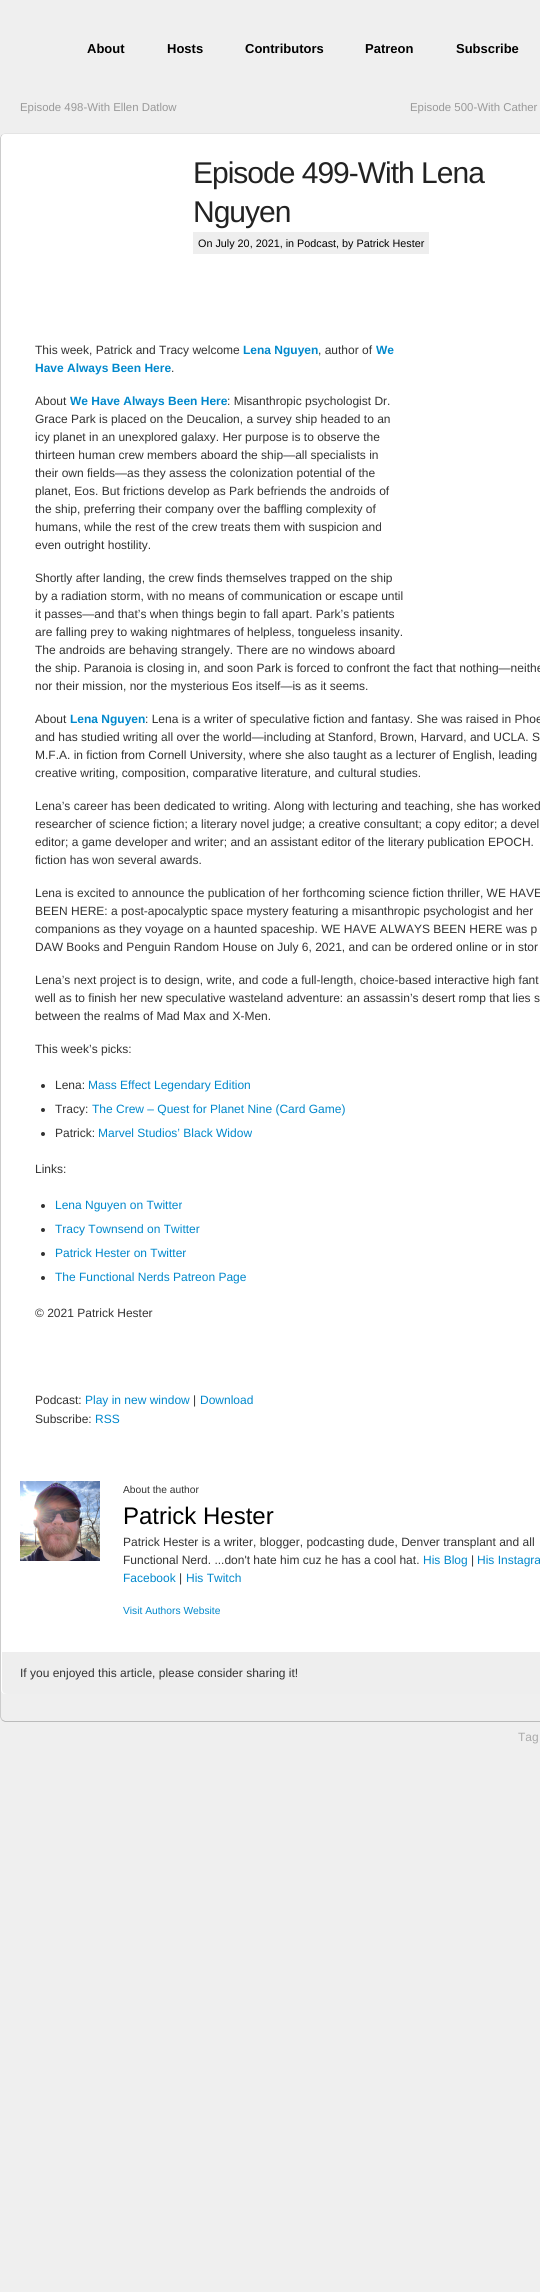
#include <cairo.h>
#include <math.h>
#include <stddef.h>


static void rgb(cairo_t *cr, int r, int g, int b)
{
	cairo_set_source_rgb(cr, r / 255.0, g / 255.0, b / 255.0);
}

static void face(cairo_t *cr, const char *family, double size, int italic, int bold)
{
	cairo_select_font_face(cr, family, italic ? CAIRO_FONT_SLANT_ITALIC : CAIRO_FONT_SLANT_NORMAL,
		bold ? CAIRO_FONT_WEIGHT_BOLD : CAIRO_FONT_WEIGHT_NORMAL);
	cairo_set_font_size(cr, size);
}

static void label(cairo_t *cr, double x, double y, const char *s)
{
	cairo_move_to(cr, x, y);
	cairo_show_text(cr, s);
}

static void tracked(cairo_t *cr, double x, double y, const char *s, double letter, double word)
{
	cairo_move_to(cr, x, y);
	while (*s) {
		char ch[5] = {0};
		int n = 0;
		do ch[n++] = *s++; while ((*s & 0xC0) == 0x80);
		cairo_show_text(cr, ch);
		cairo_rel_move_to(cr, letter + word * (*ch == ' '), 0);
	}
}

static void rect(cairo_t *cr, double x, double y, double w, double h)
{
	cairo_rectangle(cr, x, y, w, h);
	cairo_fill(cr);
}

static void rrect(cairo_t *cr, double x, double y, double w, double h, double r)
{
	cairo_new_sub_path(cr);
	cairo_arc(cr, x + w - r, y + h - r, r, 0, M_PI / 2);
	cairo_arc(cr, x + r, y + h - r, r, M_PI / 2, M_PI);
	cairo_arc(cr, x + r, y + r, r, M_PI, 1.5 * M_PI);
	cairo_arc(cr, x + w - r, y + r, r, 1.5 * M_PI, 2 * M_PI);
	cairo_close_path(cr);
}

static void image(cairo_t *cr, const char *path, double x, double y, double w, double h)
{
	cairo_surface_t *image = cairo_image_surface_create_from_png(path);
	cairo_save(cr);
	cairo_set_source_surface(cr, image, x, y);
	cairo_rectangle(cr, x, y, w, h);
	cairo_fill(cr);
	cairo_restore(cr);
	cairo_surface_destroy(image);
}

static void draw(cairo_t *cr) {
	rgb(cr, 239, 239, 239);
	cairo_paint(cr);
	face(cr, "Liberation Sans", 13, 0, 1);
	rgb(cr, 0, 0, 0);
	label(cr, 87, 53, "About");
	label(cr, 167, 53, "Hosts");
	label(cr, 245, 53, "Contributors");
	label(cr, 365, 53, "Patreon");
	label(cr, 456, 53, "Subscribe");
	face(cr, "Liberation Sans", 11.4, 0, 0);
	rgb(cr, 153, 153, 153);
	label(cr, 20, 111, "Episode 498-With Ellen Datlow");
	label(cr, 410, 111, "Episode 500-With Cather");
	cairo_new_path(cr);
	cairo_move_to(cr, 2, 135);
	cairo_line_to(cr, 5, 133.5);
	cairo_line_to(cr, 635, 133.5);
	cairo_line_to(cr, 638, 135);
	rgb(cr, 228, 228, 228);
	cairo_set_line_width(cr, 1);
	cairo_stroke(cr);
	cairo_new_path(cr);
	cairo_move_to(cr, 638, 1720);
	cairo_line_to(cr, 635, 1721.5);
	cairo_line_to(cr, 5, 1721.5);
	cairo_line_to(cr, 2, 1720);
	rgb(cr, 187, 187, 187);
	cairo_stroke(cr);
	cairo_new_path(cr);
	cairo_move_to(cr, 2, 1720);
	cairo_line_to(cr, 0.5, 1717);
	cairo_line_to(cr, 0.5, 138);
	cairo_line_to(cr, 2, 135);
	rgb(cr, 204, 204, 204);
	cairo_stroke(cr);
	rgb(cr, 255, 255, 255);
	rrect(cr, 1, 134, 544, 1560, 5);
	cairo_fill(cr);
	cairo_set_fill_rule(cr, CAIRO_FILL_RULE_EVEN_ODD);
	cairo_new_path(cr);
	cairo_move_to(cr, 6, 134);
	cairo_line_to(cr, 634, 134);
	cairo_curve_to(cr, 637, 134, 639, 136, 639, 139);
	cairo_line_to(cr, 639, 1689);
	cairo_curve_to(cr, 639, 1692, 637, 1694, 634, 1694);
	cairo_line_to(cr, 6, 1694);
	cairo_curve_to(cr, 3, 1694, 1, 1692, 1, 1689);
	cairo_line_to(cr, 1, 139);
	cairo_curve_to(cr, 1, 136, 3, 134, 6, 134);
	cairo_close_path(cr);
	cairo_move_to(cr, 6, 135);
	cairo_line_to(cr, 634, 135);
	cairo_curve_to(cr, 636, 135, 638, 137, 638, 139);
	cairo_line_to(cr, 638, 1689);
	cairo_curve_to(cr, 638, 1692, 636, 1694, 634, 1694);
	cairo_line_to(cr, 6, 1694);
	cairo_curve_to(cr, 4, 1694, 2, 1692, 2, 1689);
	cairo_line_to(cr, 2, 139);
	cairo_curve_to(cr, 2, 137, 4, 135, 6, 135);
	cairo_close_path(cr);
	cairo_fill(cr);
	face(cr, "Liberation Sans", 30, 0, 0);
	rgb(cr, 34, 34, 34);
	tracked(cr, 193, 183, "Episode 499-With Lena", -1, 0);
	tracked(cr, 193, 222, "Nguyen", -1, 0);
	rgb(cr, 238, 238, 238);
	rect(cr, 193, 232, 236, 22);
	face(cr, "Liberation Sans", 10.8, 0, 0);
	rgb(cr, 0, 0, 0);
	label(cr, 198, 247, "On July 20, 2021, in Podcast, by Patrick Hester");
	face(cr, "Liberation Sans", 12, 0, 0);
	rgb(cr, 51, 51, 51);
	label(cr, 35, 354, "This week, Patrick and Tracy welcome");
	face(cr, "Liberation Sans", 12, 0, 1);
	rgb(cr, 0, 136, 204);
	label(cr, 243, 354, "Lena Nguyen");
	face(cr, "Liberation Sans", 12, 0, 0);
	rgb(cr, 51, 51, 51);
	label(cr, 318, 354, ", author of");
	face(cr, "Liberation Sans", 12, 0, 1);
	rgb(cr, 0, 136, 204);
	label(cr, 376, 354, "We");
	label(cr, 35, 372, "Have Always Been Here");
	face(cr, "Liberation Sans", 12, 0, 0);
	rgb(cr, 51, 51, 51);
	label(cr, 171, 372, ".");
	label(cr, 35, 405, "About");
	face(cr, "Liberation Sans", 12, 0, 1);
	rgb(cr, 0, 136, 204);
	label(cr, 70, 405, "We Have Always Been Here");
	face(cr, "Liberation Sans", 12, 0, 0);
	rgb(cr, 51, 51, 51);
	label(cr, 227, 405, ": Misanthropic psychologist Dr.");
	label(cr, 35, 423, "Grace Park is placed on the Deucalion, a survey ship headed to an");
	label(cr, 35, 441, "icy planet in an unexplored galaxy. Her purpose is to observe the");
	label(cr, 35, 459, "thirteen human crew members aboard the ship—all specialists in");
	label(cr, 35, 477, "their own fields—as they assess the colonization potential of the");
	label(cr, 35, 495, "planet, Eos. But frictions develop as Park befriends the androids of");
	label(cr, 35, 513, "the ship, preferring their company over the baffling complexity of");
	label(cr, 35, 531, "humans, while the rest of the crew treats them with suspicion and");
	label(cr, 35, 549, "even outright hostility.");
	label(cr, 35, 582, "Shortly after landing, the crew finds themselves trapped on the ship");
	label(cr, 35, 600, "by a radiation storm, with no means of communication or escape until");
	label(cr, 35, 618, "it passes—and that’s when things begin to fall apart. Park’s patients");
	label(cr, 35, 636, "are falling prey to waking nightmares of helpless, tongueless insanity.");
	label(cr, 35, 654, "The androids are behaving strangely. There are no windows aboard");
	label(cr, 35, 672, "the ship. Paranoia is closing in, and soon Park is forced to confront the fact that nothing—neithe");
	label(cr, 35, 690, "nor their mission, nor the mysterious Eos itself—is as it seems.");
	label(cr, 35, 723, "About");
	face(cr, "Liberation Sans", 12, 0, 1);
	rgb(cr, 0, 136, 204);
	label(cr, 70, 723, "Lena Nguyen");
	face(cr, "Liberation Sans", 12, 0, 0);
	rgb(cr, 51, 51, 51);
	label(cr, 145, 723, ": Lena is a writer of speculative fiction and fantasy. She was raised in Phoe");
	label(cr, 35, 741, "and has studied writing all over the world—including at Stanford, Brown, Harvard, and UCLA. S");
	label(cr, 35, 759, "M.F.A. in fiction from Cornell University, where she also taught as a lecturer of English, leading");
	label(cr, 35, 777, "creative writing, composition, comparative literature, and cultural studies.");
	label(cr, 35, 810, "Lena’s career has been dedicated to writing. Along with lecturing and teaching, she has worked");
	label(cr, 35, 828, "researcher of science fiction; a literary novel judge; a creative consultant; a copy editor; a devel");
	label(cr, 35, 846, "editor; a game developer and writer; and an assistant editor of the literary publication EPOCH.");
	label(cr, 35, 864, "fiction has won several awards.");
	label(cr, 35, 897, "Lena is excited to announce the publication of her forthcoming science fiction thriller, WE HAVE");
	label(cr, 35, 915, "BEEN HERE: a post-apocalyptic space mystery featuring a misanthropic psychologist and her");
	label(cr, 35, 933, "companions as they voyage on a haunted spaceship. WE HAVE ALWAYS BEEN HERE was p");
	label(cr, 35, 951, "DAW Books and Penguin Random House on July 6, 2021, and can be ordered online or in stor");
	label(cr, 35, 984, "Lena’s next project is to design, write, and code a full-length, choice-based interactive high fant");
	label(cr, 35, 1002, "well as to finish her new speculative wasteland adventure: an assassin’s desert romp that lies s");
	label(cr, 35, 1020, "between the realms of Mad Max and X-Men.");
	label(cr, 35, 1053, "This week’s picks:");
	cairo_new_path(cr);
	cairo_arc(cr, 43, 1086, 2, 0, 2 * M_PI);
	cairo_fill(cr);
	label(cr, 55, 1089, "Lena:");
	rgb(cr, 0, 136, 204);
	label(cr, 88, 1089, "Mass Effect Legendary Edition");
	rgb(cr, 51, 51, 51);
	cairo_new_path(cr);
	cairo_arc(cr, 43, 1110, 2, 0, 2 * M_PI);
	cairo_fill(cr);
	label(cr, 55, 1113, "Tracy:");
	rgb(cr, 0, 136, 204);
	label(cr, 92, 1113, "The Crew – Quest for Planet Nine (Card Game)");
	rgb(cr, 51, 51, 51);
	cairo_new_path(cr);
	cairo_arc(cr, 43, 1134, 2, 0, 2 * M_PI);
	cairo_fill(cr);
	label(cr, 55, 1137, "Patrick:");
	rgb(cr, 0, 136, 204);
	label(cr, 98, 1137, "Marvel Studios’ Black Widow");
	rgb(cr, 51, 51, 51);
	label(cr, 35, 1173, "Links:");
	cairo_new_path(cr);
	cairo_arc(cr, 43, 1206, 2, 0, 2 * M_PI);
	cairo_fill(cr);
	rgb(cr, 0, 136, 204);
	label(cr, 55, 1209, "Lena Nguyen on Twitter");
	rgb(cr, 51, 51, 51);
	cairo_new_path(cr);
	cairo_arc(cr, 43, 1230, 2, 0, 2 * M_PI);
	cairo_fill(cr);
	rgb(cr, 0, 136, 204);
	label(cr, 55, 1233, "Tracy Townsend on Twitter");
	rgb(cr, 51, 51, 51);
	cairo_new_path(cr);
	cairo_arc(cr, 43, 1254, 2, 0, 2 * M_PI);
	cairo_fill(cr);
	rgb(cr, 0, 136, 204);
	label(cr, 55, 1257, "Patrick Hester on Twitter");
	rgb(cr, 51, 51, 51);
	cairo_new_path(cr);
	cairo_arc(cr, 43, 1278, 2, 0, 2 * M_PI);
	cairo_fill(cr);
	rgb(cr, 0, 136, 204);
	label(cr, 55, 1281, "The Functional Nerds Patreon Page");
	rgb(cr, 51, 51, 51);
	label(cr, 35, 1317, "© 2021 Patrick Hester");
	label(cr, 35, 1404, "Podcast:");
	rgb(cr, 0, 136, 204);
	label(cr, 85, 1404, "Play in new window");
	rgb(cr, 51, 51, 51);
	label(cr, 193, 1404, "|");
	rgb(cr, 0, 136, 204);
	label(cr, 200, 1404, "Download");
	rgb(cr, 51, 51, 51);
	label(cr, 35, 1423, "Subscribe:");
	rgb(cr, 0, 136, 204);
	label(cr, 95, 1423, "RSS");
	image(cr, "image0.png", 20, 1481, 80, 80);
	face(cr, "Liberation Sans", 10.25, 0, 0);
	rgb(cr, 51, 51, 51);
	label(cr, 123, 1493, "About the author");
	face(cr, "Liberation Sans", 24, 0, 0);
	rgb(cr, 0, 0, 0);
	label(cr, 123, 1524, "Patrick Hester");
	face(cr, "Liberation Sans", 12, 0, 0);
	rgb(cr, 51, 51, 51);
	label(cr, 123, 1546, "Patrick Hester is a writer, blogger, podcasting dude, Denver transplant and all");
	label(cr, 123, 1564, "Functional Nerd. ...don't hate him cuz he has a cool hat.");
	rgb(cr, 0, 136, 204);
	label(cr, 423, 1564, "His Blog");
	rgb(cr, 51, 51, 51);
	label(cr, 471, 1564, "|");
	rgb(cr, 0, 136, 204);
	label(cr, 477, 1564, "His Instagra");
	label(cr, 123, 1582, "Facebook");
	rgb(cr, 51, 51, 51);
	label(cr, 179, 1582, "|");
	rgb(cr, 0, 136, 204);
	label(cr, 186, 1582, "His Twitch");
	face(cr, "Liberation Sans", 10.25, 0, 0);
	label(cr, 123, 1614, "Visit Authors Website");
	rgb(cr, 238, 238, 238);
	cairo_new_path(cr);
	cairo_move_to(cr, 2, 1652);
	cairo_line_to(cr, 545, 1652);
	cairo_line_to(cr, 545, 1689);
	cairo_curve_to(cr, 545, 1692, 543, 1694, 540, 1694);
	cairo_line_to(cr, 7, 1694);
	cairo_curve_to(cr, 4, 1694, 2, 1692, 2, 1689);
	cairo_close_path(cr);
	cairo_fill(cr);
	face(cr, "Liberation Sans", 12, 0, 0);
	rgb(cr, 51, 51, 51);
	label(cr, 20, 1677, "If you enjoyed this article, please consider sharing it!");
	rgb(cr, 170, 170, 170);
	label(cr, 518, 1741, "Tag");
}

int main(void) {
	cairo_surface_t *surface = cairo_image_surface_create(CAIRO_FORMAT_RGB24, 540, 2292);
	cairo_t *cr = cairo_create(surface);
	cairo_font_options_t *options = cairo_font_options_create();
	cairo_font_options_set_hint_metrics(options, CAIRO_HINT_METRICS_OFF);
	cairo_font_options_set_hint_style(options, CAIRO_HINT_STYLE_NONE);
	cairo_set_font_options(cr, options);
	cairo_set_miter_limit(cr, 4);
	draw(cr);
	cairo_surface_write_to_png(surface, "render.png");
	cairo_font_options_destroy(options);
	cairo_destroy(cr);
	cairo_surface_destroy(surface);
	return 0;
}
